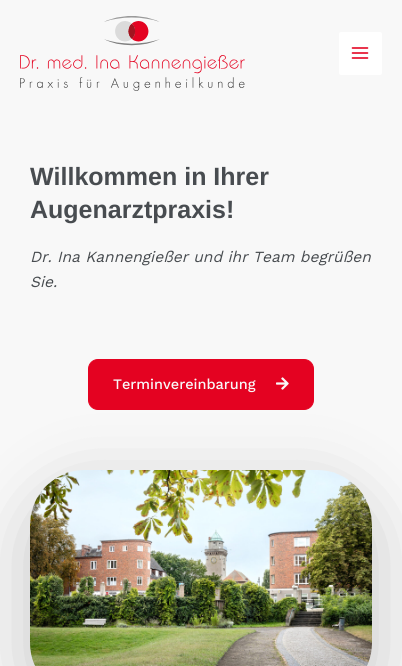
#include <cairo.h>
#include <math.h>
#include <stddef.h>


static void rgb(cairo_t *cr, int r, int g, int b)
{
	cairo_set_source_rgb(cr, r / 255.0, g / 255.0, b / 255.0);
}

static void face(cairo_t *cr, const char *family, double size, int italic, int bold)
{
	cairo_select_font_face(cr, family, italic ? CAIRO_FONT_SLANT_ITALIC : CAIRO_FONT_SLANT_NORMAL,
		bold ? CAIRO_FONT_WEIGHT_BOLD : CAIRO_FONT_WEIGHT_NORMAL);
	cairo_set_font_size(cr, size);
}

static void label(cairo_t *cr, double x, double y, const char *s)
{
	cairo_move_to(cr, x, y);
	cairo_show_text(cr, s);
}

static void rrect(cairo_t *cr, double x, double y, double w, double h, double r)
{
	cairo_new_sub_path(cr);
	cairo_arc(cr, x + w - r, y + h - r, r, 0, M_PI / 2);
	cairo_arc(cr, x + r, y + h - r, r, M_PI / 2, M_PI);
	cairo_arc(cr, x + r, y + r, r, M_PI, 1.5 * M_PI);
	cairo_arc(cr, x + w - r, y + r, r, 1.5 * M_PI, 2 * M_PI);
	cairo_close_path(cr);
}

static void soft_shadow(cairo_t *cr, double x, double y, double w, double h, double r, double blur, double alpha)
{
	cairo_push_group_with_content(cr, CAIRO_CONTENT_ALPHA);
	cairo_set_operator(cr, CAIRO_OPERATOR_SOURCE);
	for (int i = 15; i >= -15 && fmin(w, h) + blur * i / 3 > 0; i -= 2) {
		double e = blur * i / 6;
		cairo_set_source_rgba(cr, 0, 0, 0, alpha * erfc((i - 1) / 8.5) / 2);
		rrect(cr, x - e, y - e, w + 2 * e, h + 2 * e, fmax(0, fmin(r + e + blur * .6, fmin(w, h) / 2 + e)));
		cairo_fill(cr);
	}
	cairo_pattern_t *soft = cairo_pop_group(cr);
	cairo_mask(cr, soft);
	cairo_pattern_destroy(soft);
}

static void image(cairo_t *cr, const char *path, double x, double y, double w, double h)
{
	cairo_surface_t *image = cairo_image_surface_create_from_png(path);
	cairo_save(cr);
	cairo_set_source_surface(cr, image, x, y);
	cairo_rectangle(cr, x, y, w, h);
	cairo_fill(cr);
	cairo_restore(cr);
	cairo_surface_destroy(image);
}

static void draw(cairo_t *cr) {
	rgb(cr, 248, 248, 248);
	cairo_paint(cr);
	image(cr, "image0.png", 20, 16, 225, 75);
	rgb(cr, 255, 255, 255);
	rrect(cr, 339, 32, 43, 43, 2);
	cairo_fill(cr);
	image(cr, "image1.png", 351, 47, 18, 12);
	face(cr, "Liberation Sans", 25, 0, 1);
	rgb(cr, 72, 76, 80);
	label(cr, 30, 185, "Willkommen in Ihrer");
	label(cr, 30, 218, "Augenarztpraxis!");
	face(cr, "Work Sans", 15.5, 1, 0);
	label(cr, 30, 262, "Dr. Ina Kannengießer und ihr Team begrüßen");
	label(cr, 30, 287, "Sie.");
	rgb(cr, 228, 2, 33);
	rrect(cr, 88.5, 359.5, 225, 50, 9.5);
	cairo_fill_preserve(cr);
	cairo_set_line_width(cr, 1);
	cairo_stroke(cr);
	face(cr, "Work Sans Medium", 14.5, 0, 0);
	rgb(cr, 248, 248, 248);
	label(cr, 113, 389, "Terminvereinbarung");
	image(cr, "image2.png", 276, 377, 13, 13);
	rgb(cr, 0, 0, 0);
	soft_shadow(cr, 29, 489, 344, 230, 56, 35, 0.2);
	image(cr, "image3.png", 30, 470, 342, 196);
}

int main(void) {
	cairo_surface_t *surface = cairo_image_surface_create(CAIRO_FORMAT_RGB24, 402, 666);
	cairo_t *cr = cairo_create(surface);
	cairo_font_options_t *options = cairo_font_options_create();
	cairo_font_options_set_hint_metrics(options, CAIRO_HINT_METRICS_OFF);
	cairo_font_options_set_hint_style(options, CAIRO_HINT_STYLE_NONE);
	cairo_set_font_options(cr, options);
	cairo_set_miter_limit(cr, 4);
	draw(cr);
	cairo_surface_write_to_png(surface, "render.png");
	cairo_font_options_destroy(options);
	cairo_destroy(cr);
	cairo_surface_destroy(surface);
	return 0;
}
